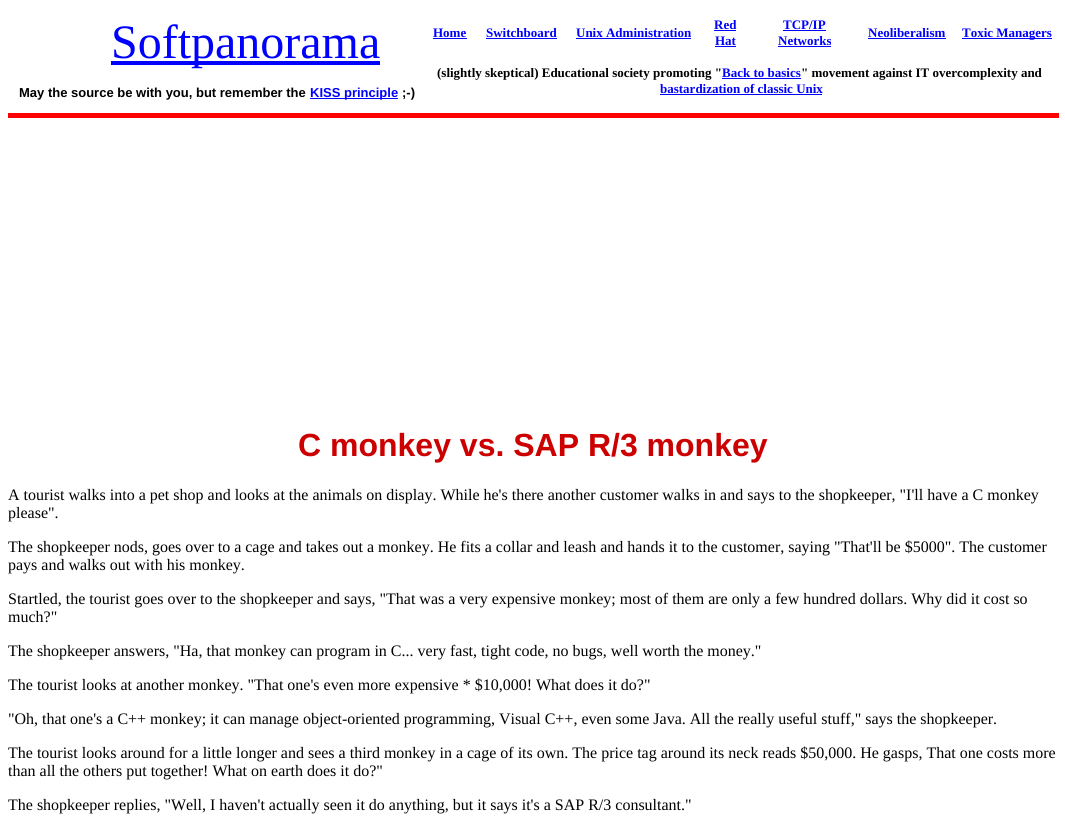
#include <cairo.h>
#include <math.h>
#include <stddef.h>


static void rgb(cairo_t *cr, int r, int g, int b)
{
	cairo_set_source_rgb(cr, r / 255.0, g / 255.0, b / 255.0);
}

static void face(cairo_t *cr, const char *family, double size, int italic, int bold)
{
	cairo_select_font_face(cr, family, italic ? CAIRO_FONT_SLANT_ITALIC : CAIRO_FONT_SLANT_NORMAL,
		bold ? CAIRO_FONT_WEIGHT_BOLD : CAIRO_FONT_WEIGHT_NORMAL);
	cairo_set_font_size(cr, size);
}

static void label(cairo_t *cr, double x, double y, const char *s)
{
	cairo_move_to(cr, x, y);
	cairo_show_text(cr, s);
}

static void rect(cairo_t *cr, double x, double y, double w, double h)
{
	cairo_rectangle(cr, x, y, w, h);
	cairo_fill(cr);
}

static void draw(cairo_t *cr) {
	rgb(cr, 255, 255, 255);
	cairo_paint(cr);
	rgb(cr, 0, 0, 255);
	rect(cr, 111, 61, 269, 4);
	face(cr, "Liberation Serif", 48, 0, 0);
	label(cr, 111, 58, "Softpanorama");
	face(cr, "Liberation Sans", 13, 0, 1);
	rgb(cr, 0, 0, 0);
	label(cr, 19, 97, "May the source be with you, but remember the");
	rgb(cr, 0, 0, 255);
	rect(cr, 310, 98, 88, 1);
	label(cr, 310, 97, "KISS principle");
	rgb(cr, 0, 0, 0);
	label(cr, 402, 97, ";-)");
	face(cr, "Liberation Serif", 13, 0, 1);
	rgb(cr, 0, 0, 255);
	label(cr, 433, 37, "Home");
	rect(cr, 433, 38, 34, 1);
	label(cr, 486, 37, "Switchboard");
	rect(cr, 486, 38, 71, 1);
	label(cr, 576, 37, "Unix Administration");
	rect(cr, 576, 38, 115, 1);
	label(cr, 714, 29, "Red");
	rect(cr, 714, 30, 22, 1);
	label(cr, 715, 45, "Hat");
	rect(cr, 715, 46, 21, 1);
	label(cr, 783, 29, "TCP/IP");
	rect(cr, 783, 30, 43, 1);
	label(cr, 778, 45, "Networks");
	rect(cr, 778, 46, 53, 1);
	label(cr, 868, 37, "Neoliberalism");
	rect(cr, 868, 38, 78, 1);
	rect(cr, 962, 38, 90, 1);
	label(cr, 962, 37, "Toxic Managers");
	rgb(cr, 0, 0, 0);
	label(cr, 437, 77, "(slightly skeptical) Educational society promoting \"");
	rgb(cr, 0, 0, 255);
	rect(cr, 722, 78, 79, 1);
	label(cr, 722, 77, "Back to basics");
	rgb(cr, 0, 0, 0);
	label(cr, 801, 77, "\" movement against IT overcomplexity and");
	rgb(cr, 0, 0, 255);
	label(cr, 660, 93, "bastardization of classic Unix");
	rect(cr, 660, 94, 162, 1);
	rgb(cr, 255, 0, 0);
	rect(cr, 8, 113, 1051, 5);
	face(cr, "Liberation Sans", 32, 0, 1);
	rgb(cr, 204, 0, 0);
	label(cr, 298, 456, "C monkey vs. SAP R/3 monkey");
	face(cr, "Liberation Serif", 16, 0, 0);
	rgb(cr, 0, 0, 0);
	label(cr, 8, 500, "A tourist walks into a pet shop and looks at the animals on display. While he's there another customer walks in and says to the shopkeeper, \"I'll have a C monkey");
	label(cr, 8, 518, "please\".");
	label(cr, 8, 552, "The shopkeeper nods, goes over to a cage and takes out a monkey. He fits a collar and leash and hands it to the customer, saying \"That'll be $5000\". The customer");
	label(cr, 8, 570, "pays and walks out with his monkey.");
	label(cr, 8, 604, "Startled, the tourist goes over to the shopkeeper and says, \"That was a very expensive monkey; most of them are only a few hundred dollars. Why did it cost so");
	label(cr, 8, 622, "much?\"");
	label(cr, 8, 656, "The shopkeeper answers, \"Ha, that monkey can program in C... very fast, tight code, no bugs, well worth the money.\"");
	label(cr, 8, 690, "The tourist looks at another monkey. \"That one's even more expensive * $10,000! What does it do?\"");
	label(cr, 8, 724, "\"Oh, that one's a C++ monkey; it can manage object-oriented programming, Visual C++, even some Java. All the really useful stuff,\" says the shopkeeper.");
	label(cr, 8, 758, "The tourist looks around for a little longer and sees a third monkey in a cage of its own. The price tag around its neck reads $50,000. He gasps, That one costs more");
	label(cr, 8, 776, "than all the others put together! What on earth does it do?\"");
	label(cr, 8, 810, "The shopkeeper replies, \"Well, I haven't actually seen it do anything, but it says it's a SAP R/3 consultant.\"");
}

int main(void) {
	cairo_surface_t *surface = cairo_image_surface_create(CAIRO_FORMAT_RGB24, 1065, 825);
	cairo_t *cr = cairo_create(surface);
	cairo_font_options_t *options = cairo_font_options_create();
	cairo_font_options_set_hint_metrics(options, CAIRO_HINT_METRICS_OFF);
	cairo_font_options_set_hint_style(options, CAIRO_HINT_STYLE_NONE);
	cairo_set_font_options(cr, options);
	cairo_set_miter_limit(cr, 4);
	draw(cr);
	cairo_surface_write_to_png(surface, "render.png");
	cairo_font_options_destroy(options);
	cairo_destroy(cr);
	cairo_surface_destroy(surface);
	return 0;
}
